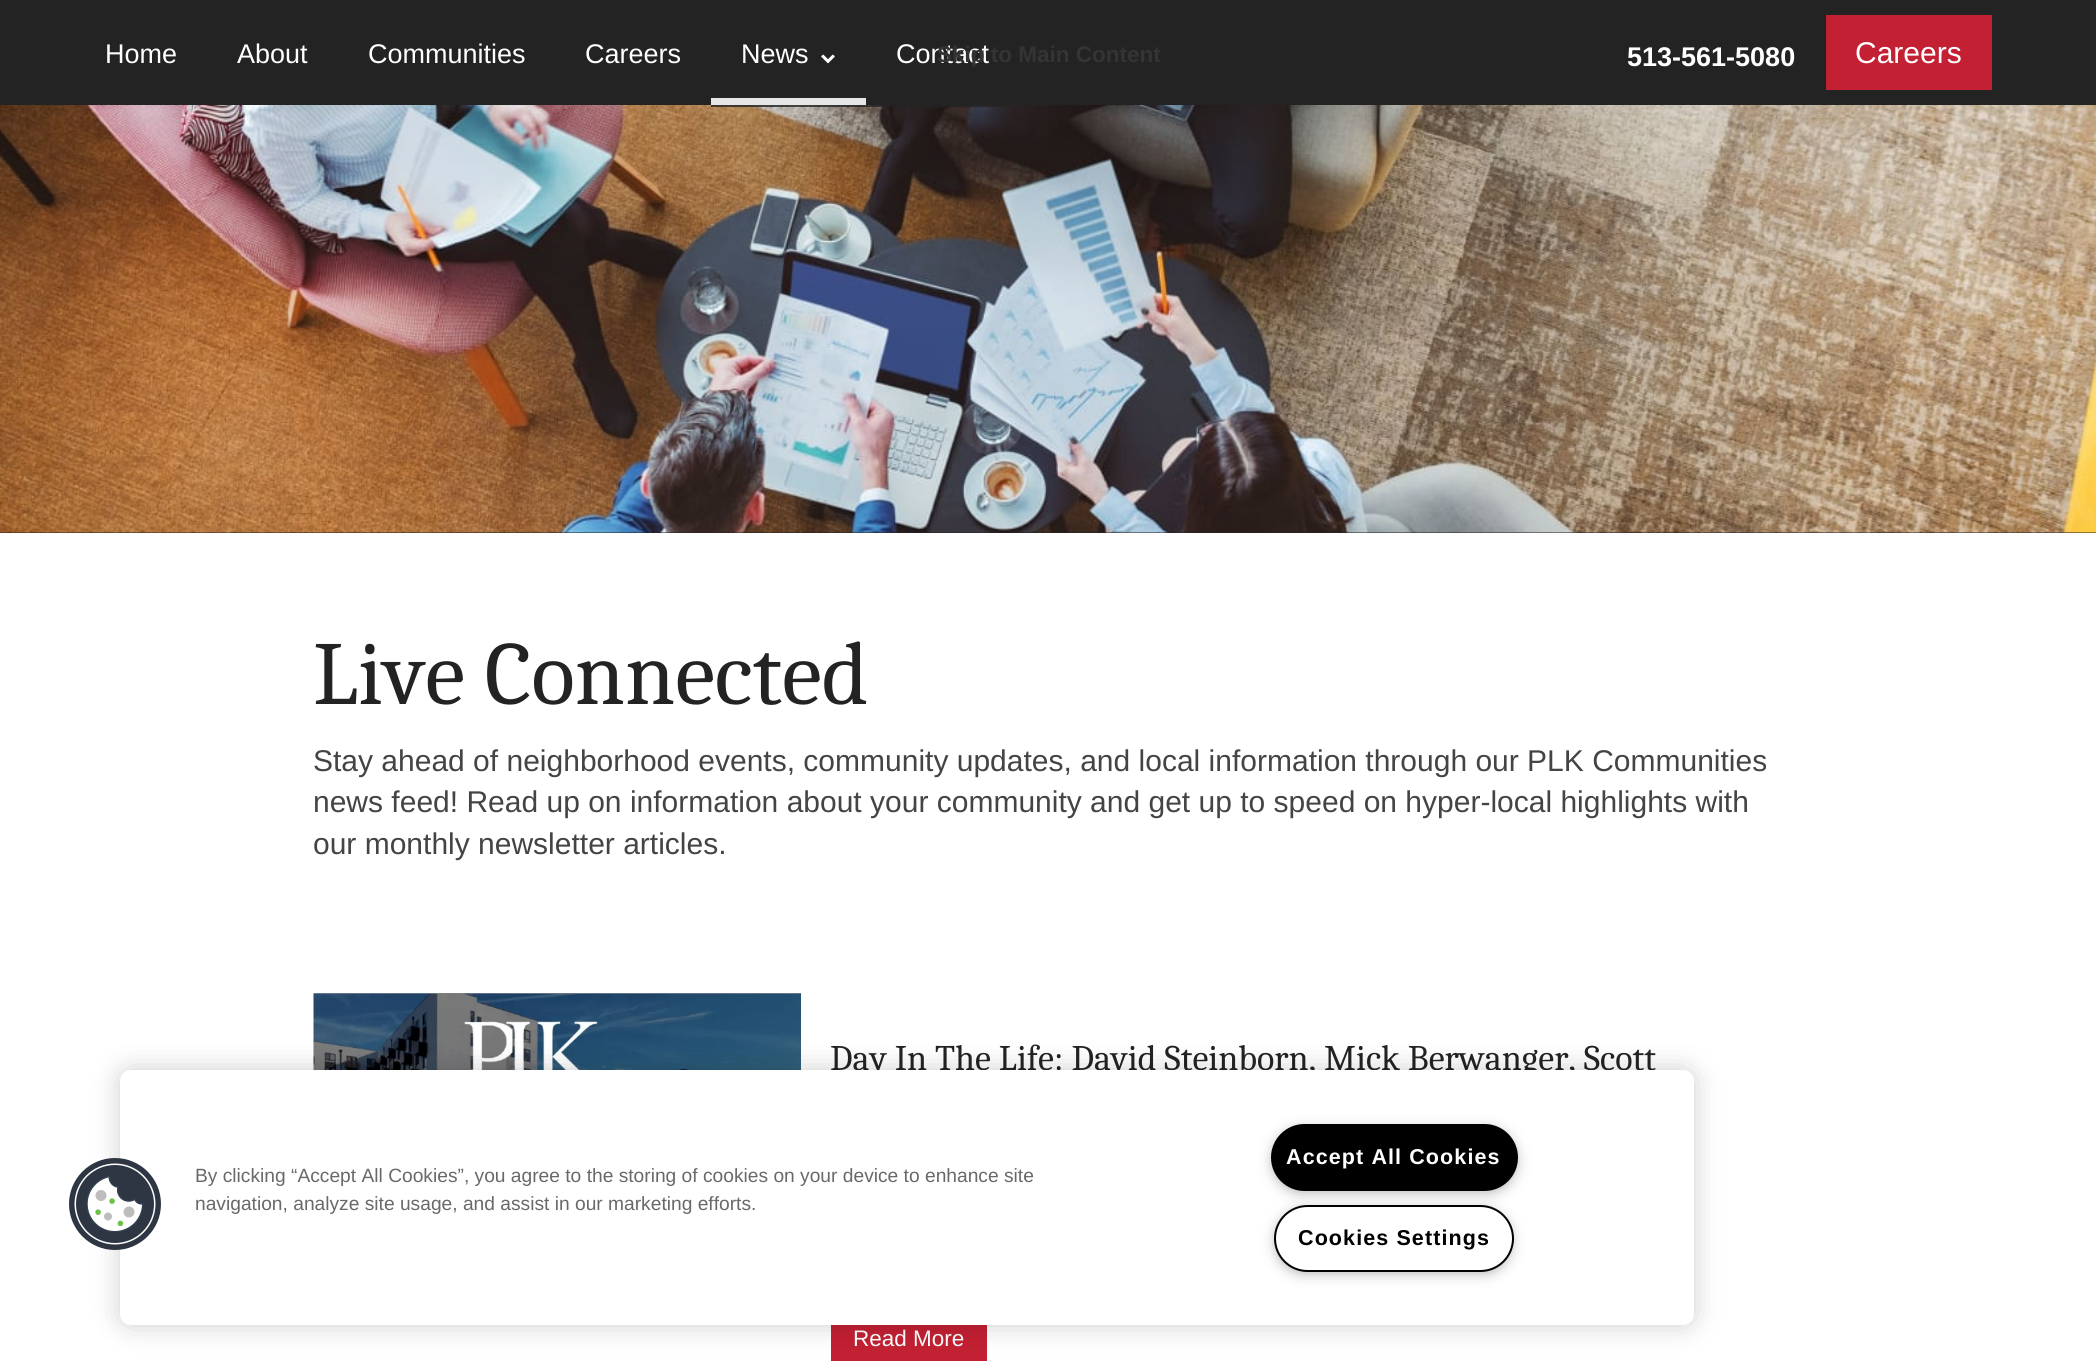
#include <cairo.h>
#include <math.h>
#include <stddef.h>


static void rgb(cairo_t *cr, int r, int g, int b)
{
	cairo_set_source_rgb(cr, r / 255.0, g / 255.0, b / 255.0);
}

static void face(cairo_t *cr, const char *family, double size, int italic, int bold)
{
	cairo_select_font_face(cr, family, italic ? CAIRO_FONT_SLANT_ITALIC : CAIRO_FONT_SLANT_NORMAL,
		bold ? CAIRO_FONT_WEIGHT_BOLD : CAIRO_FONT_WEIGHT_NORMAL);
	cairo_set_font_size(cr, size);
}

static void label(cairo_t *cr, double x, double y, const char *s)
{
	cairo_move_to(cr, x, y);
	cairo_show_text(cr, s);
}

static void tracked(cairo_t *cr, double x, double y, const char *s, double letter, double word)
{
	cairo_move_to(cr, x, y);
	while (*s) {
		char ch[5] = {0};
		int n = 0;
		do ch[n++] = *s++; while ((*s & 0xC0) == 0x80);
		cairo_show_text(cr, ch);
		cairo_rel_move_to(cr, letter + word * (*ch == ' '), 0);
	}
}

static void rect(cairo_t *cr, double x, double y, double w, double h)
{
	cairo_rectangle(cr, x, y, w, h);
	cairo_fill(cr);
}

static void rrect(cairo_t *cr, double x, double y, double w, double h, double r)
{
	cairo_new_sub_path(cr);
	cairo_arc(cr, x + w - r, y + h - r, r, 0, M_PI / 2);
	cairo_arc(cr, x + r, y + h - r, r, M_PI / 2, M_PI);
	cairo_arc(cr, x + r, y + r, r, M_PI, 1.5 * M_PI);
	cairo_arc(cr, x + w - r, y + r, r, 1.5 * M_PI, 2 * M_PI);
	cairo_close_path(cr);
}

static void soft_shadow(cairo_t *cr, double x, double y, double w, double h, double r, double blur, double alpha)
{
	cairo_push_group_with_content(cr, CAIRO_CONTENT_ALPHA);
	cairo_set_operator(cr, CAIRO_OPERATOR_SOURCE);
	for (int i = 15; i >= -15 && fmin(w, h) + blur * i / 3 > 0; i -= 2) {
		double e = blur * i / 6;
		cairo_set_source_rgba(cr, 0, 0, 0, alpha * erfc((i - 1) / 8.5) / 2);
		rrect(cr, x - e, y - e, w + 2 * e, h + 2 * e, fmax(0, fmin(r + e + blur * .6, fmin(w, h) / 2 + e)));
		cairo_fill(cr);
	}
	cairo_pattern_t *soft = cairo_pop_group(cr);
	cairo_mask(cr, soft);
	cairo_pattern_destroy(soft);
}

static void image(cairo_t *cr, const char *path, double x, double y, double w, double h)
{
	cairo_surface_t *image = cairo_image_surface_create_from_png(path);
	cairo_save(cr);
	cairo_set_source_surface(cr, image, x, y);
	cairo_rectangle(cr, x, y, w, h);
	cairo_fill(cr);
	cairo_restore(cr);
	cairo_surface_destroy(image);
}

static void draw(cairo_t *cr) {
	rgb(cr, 35, 35, 35);
	cairo_paint(cr);
	face(cr, "Liberation Sans", 27, 0, 0);
	rgb(cr, 255, 255, 255);
	label(cr, 105, 63, "Home");
	label(cr, 237, 63, "About");
	label(cr, 368, 63, "Communities");
	label(cr, 585, 63, "Careers");
	label(cr, 741, 63, "News");
	image(cr, "image0.png", 821, 54, 14, 10);
	rgb(cr, 230, 230, 230);
	rect(cr, 711, 98, 155, 7);
	image(cr, "image1.png", 0, 105, 2096, 428);
	cairo_set_source_rgba(cr, 0.137, 0.137, 0.137, 0.8);
	rect(cr, 711, 105, 300, 2);
	rgb(cr, 255, 255, 255);
	label(cr, 896, 63, "Contact");
	face(cr, "Liberation Sans", 27, 0, 1);
	label(cr, 1627, 66, "513-561-5080");
	rgb(cr, 195, 32, 51);
	rect(cr, 1826, 15, 166, 75);
	face(cr, "Liberation Sans", 30, 0, 0);
	rgb(cr, 255, 255, 255);
	label(cr, 1855, 63, "Careers");
	rect(cr, 0, 533, 2096, 839);
	face(cr, "Caladea", 90, 0, 0);
	rgb(cr, 35, 35, 35);
	label(cr, 313, 704, "Live Connected");
	face(cr, "Liberation Sans", 30, 0, 0);
	rgb(cr, 68, 68, 68);
	label(cr, 313, 771, "Stay ahead of neighborhood events, community updates, and local information through our PLK Communities");
	label(cr, 313, 812, "news feed! Read up on information about your community and get up to speed on hyper-local highlights with");
	label(cr, 313, 854, "our monthly newsletter articles.");
	image(cr, "image2.png", 313, 993, 488, 77);
	face(cr, "Caladea", 36, 0, 0);
	rgb(cr, 35, 35, 35);
	label(cr, 830, 1070, "Day In The Life: David Steinborn, Mick Berwanger, Scott");
	rgb(cr, 195, 32, 51);
	rect(cr, 831, 1325, 156, 36);
	face(cr, "Liberation Sans", 22.5, 0, 0);
	rgb(cr, 255, 255, 255);
	label(cr, 853, 1346, "Read More");
	face(cr, "Liberation Sans", 22.5, 0, 1);
	rgb(cr, 52, 52, 52);
	label(cr, 937, 62, "Skip to Main Content");
	rgb(cr, 0, 0, 0);
	soft_shadow(cr, 120, 1070, 1574, 255, 11, 13.5, 0.2);
	rgb(cr, 255, 255, 255);
	rrect(cr, 120, 1070, 1574, 255, 11);
	cairo_fill(cr);
	image(cr, "image3.png", 69, 1158, 92, 92);
	face(cr, "Liberation Sans", 19.2, 0, 0);
	rgb(cr, 105, 105, 105);
	label(cr, 195, 1182, "By clicking “Accept All Cookies”, you agree to the storing of cookies on your device to enhance site");
	label(cr, 195, 1210, "navigation, analyze site usage, and assist in our marketing efforts.");
	rgb(cr, 153, 153, 153);
	soft_shadow(cr, 1275, 1131, 239, 59, 29.5, 7.5, 1);
	rgb(cr, 0, 0, 0);
	rrect(cr, 1272, 1125, 245, 65, 32.5);
	cairo_fill_preserve(cr);
	cairo_stroke(cr);
	face(cr, "Liberation Sans", 21.5, 0, 1);
	rgb(cr, 255, 255, 255);
	tracked(cr, 1286, 1164, "Accept All Cookies", 1.1, 0);
	rgb(cr, 153, 153, 153);
	soft_shadow(cr, 1278, 1212, 231, 59, 29.5, 7.5, 1);
	rgb(cr, 255, 255, 255);
	rrect(cr, 1275, 1206, 238, 65, 32.5);
	cairo_fill_preserve(cr);
	rgb(cr, 0, 0, 0);
	cairo_stroke(cr);
	tracked(cr, 1298, 1245, "Cookies Settings", 1.1, 0);
}

int main(void) {
	cairo_surface_t *surface = cairo_image_surface_create(CAIRO_FORMAT_RGB24, 2096, 1372);
	cairo_t *cr = cairo_create(surface);
	cairo_font_options_t *options = cairo_font_options_create();
	cairo_font_options_set_hint_metrics(options, CAIRO_HINT_METRICS_OFF);
	cairo_font_options_set_hint_style(options, CAIRO_HINT_STYLE_NONE);
	cairo_set_font_options(cr, options);
	cairo_set_miter_limit(cr, 4);
	draw(cr);
	cairo_surface_write_to_png(surface, "render.png");
	cairo_font_options_destroy(options);
	cairo_destroy(cr);
	cairo_surface_destroy(surface);
	return 0;
}
